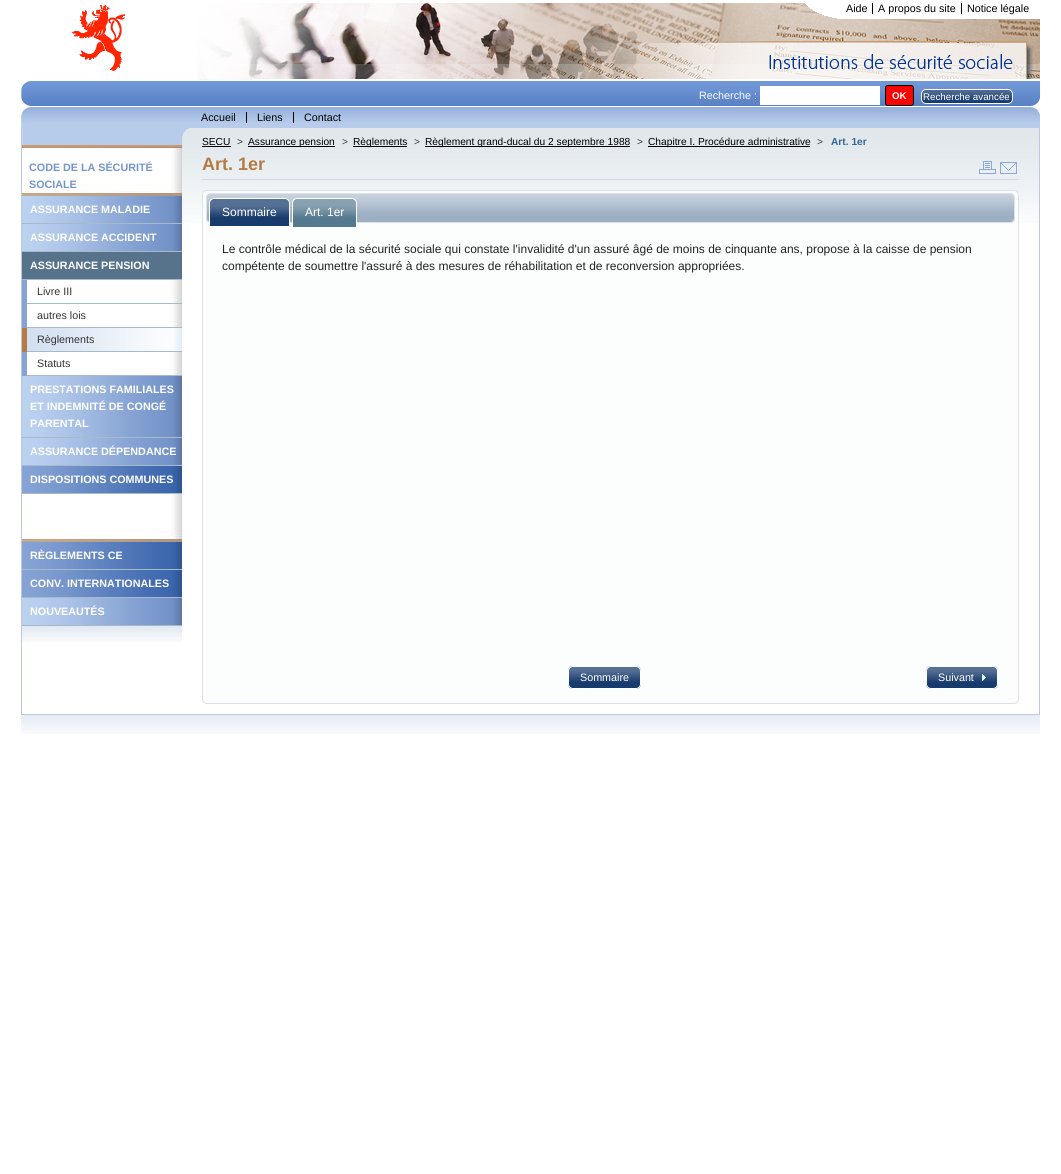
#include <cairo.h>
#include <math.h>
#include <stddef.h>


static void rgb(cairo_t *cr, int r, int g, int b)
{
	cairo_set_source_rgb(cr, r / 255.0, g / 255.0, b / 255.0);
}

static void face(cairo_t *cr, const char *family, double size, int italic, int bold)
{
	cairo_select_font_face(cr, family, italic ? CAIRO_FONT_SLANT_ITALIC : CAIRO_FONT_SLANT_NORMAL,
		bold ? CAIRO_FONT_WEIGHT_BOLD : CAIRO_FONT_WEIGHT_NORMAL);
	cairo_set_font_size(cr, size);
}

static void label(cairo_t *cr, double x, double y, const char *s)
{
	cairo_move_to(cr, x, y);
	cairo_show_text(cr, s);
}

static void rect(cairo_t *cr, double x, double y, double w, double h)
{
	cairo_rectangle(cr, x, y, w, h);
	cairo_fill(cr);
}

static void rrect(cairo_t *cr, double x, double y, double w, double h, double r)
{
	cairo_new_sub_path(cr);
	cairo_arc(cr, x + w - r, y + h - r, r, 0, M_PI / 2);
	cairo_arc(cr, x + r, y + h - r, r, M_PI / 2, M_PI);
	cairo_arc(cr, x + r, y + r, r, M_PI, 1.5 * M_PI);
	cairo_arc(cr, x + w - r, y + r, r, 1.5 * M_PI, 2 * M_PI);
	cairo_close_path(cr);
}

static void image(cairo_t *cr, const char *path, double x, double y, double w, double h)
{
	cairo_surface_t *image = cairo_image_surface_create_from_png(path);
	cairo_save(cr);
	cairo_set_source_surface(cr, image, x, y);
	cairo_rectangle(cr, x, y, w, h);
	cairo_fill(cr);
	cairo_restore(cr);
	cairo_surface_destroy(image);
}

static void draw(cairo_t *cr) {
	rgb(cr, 255, 255, 255);
	cairo_paint(cr);
	image(cr, "image0.png", 197, 3, 843, 77);
	image(cr, "image1.png", 72, 5, 53, 66);
	rgb(cr, 255, 255, 255);
	rect(cr, 846, 3, 194, 16);
	face(cr, "Liberation Sans", 10.75, 0, 0);
	rgb(cr, 0, 0, 0);
	label(cr, 846, 12, "Aide");
	image(cr, "image2.png", 805, 3, 41, 16);
	rect(cr, 872, 3, 1, 11);
	rect(cr, 961, 3, 1, 11);
	label(cr, 878, 12, "A propos du site");
	label(cr, 967, 12, "Notice légale");
	image(cr, "image3.png", 31, 81, 1009, 25);
	image(cr, "image4.png", 21, 81, 10, 25);
	rgb(cr, 255, 255, 255);
	label(cr, 699, 99, "Recherche :");
	rect(cr, 760, 86, 120, 19);
	rgb(cr, 255, 0, 0);
	rrect(cr, 885.5, 85.5, 28, 20, 2.5);
	cairo_fill_preserve(cr);
	rgb(cr, 0, 0, 0);
	cairo_set_line_width(cr, 1);
	cairo_stroke(cr);
	face(cr, "Liberation Sans", 9.75, 0, 1);
	rgb(cr, 255, 255, 255);
	label(cr, 892, 99, "OK");
	image(cr, "image5.png", 921, 89, 92, 15);
	rrect(cr, 921.5, 89.5, 91, 14, 4.5);
	cairo_stroke(cr);
	face(cr, "Liberation Sans", 9.75, 0, 0);
	label(cr, 923, 100, "Recherche avancée");
	image(cr, "image6.png", 1031, 98, 9, 8);
	image(cr, "image7.png", 31, 107, 1009, 21);
	image(cr, "image8.png", 21, 107, 10, 21);
	image(cr, "image9.png", 1031, 107, 9, 8);
	rgb(cr, 0, 0, 0);
	rect(cr, 246, 112, 1, 11);
	face(cr, "Liberation Sans", 10.75, 0, 0);
	label(cr, 201, 121, "Accueil");
	rect(cr, 293, 112, 1, 11);
	label(cr, 257, 121, "Liens");
	label(cr, 304, 121, "Contact");
	image(cr, "image10.png", 182, 128, 857, 95);
	rgb(cr, 191, 198, 226);
	rect(cr, 1039, 128, 1, 586);
	rect(cr, 21, 128, 1, 586);
	image(cr, "image11.png", 22, 128, 160, 20);
	image(cr, "image12.png", 182, 128, 9, 20);
	image(cr, "image13.png", 22, 626, 160, 16);
	image(cr, "image14.png", 22, 148, 160, 48);
	face(cr, "Liberation Sans", 10.75, 0, 1);
	rgb(cr, 115, 149, 205);
	label(cr, 29, 171, "CODE DE LA SÉCURITÉ");
	label(cr, 29, 188, "SOCIALE");
	image(cr, "image15.png", 22, 196, 160, 27);
	rgb(cr, 165, 187, 201);
	rect(cr, 22, 223, 160, 1);
	rgb(cr, 255, 255, 255);
	label(cr, 30, 213, "ASSURANCE MALADIE");
	image(cr, "image15.png", 22, 224, 160, 27);
	rgb(cr, 165, 187, 201);
	rect(cr, 22, 251, 160, 1);
	rgb(cr, 255, 255, 255);
	label(cr, 30, 241, "ASSURANCE ACCIDENT");
	image(cr, "image16.png", 22, 252, 160, 27);
	rgb(cr, 165, 187, 201);
	rect(cr, 22, 279, 160, 1);
	rgb(cr, 255, 255, 255);
	label(cr, 30, 269, "ASSURANCE PENSION");
	rgb(cr, 135, 162, 213);
	rect(cr, 22, 280, 5, 48);
	image(cr, "image17.png", 27, 280, 155, 23);
	rgb(cr, 165, 187, 201);
	rect(cr, 27, 303, 155, 1);
	face(cr, "Liberation Sans", 10.75, 0, 0);
	rgb(cr, 52, 52, 52);
	label(cr, 37, 295, "Livre III");
	image(cr, "image17.png", 27, 304, 155, 23);
	rgb(cr, 165, 187, 201);
	rect(cr, 27, 327, 155, 1);
	rgb(cr, 52, 52, 52);
	label(cr, 37, 319, "autres lois");
	rgb(cr, 181, 123, 69);
	rect(cr, 22, 328, 5, 24);
	image(cr, "image18.png", 27, 328, 155, 23);
	rgb(cr, 165, 187, 201);
	rect(cr, 27, 351, 155, 1);
	rgb(cr, 52, 52, 52);
	label(cr, 37, 343, "Règlements");
	rgb(cr, 135, 162, 213);
	rect(cr, 22, 352, 5, 24);
	image(cr, "image17.png", 27, 352, 155, 23);
	rgb(cr, 165, 187, 201);
	rect(cr, 27, 375, 155, 1);
	rgb(cr, 52, 52, 52);
	label(cr, 37, 367, "Statuts");
	image(cr, "image19.png", 22, 376, 160, 61);
	rgb(cr, 165, 187, 201);
	rect(cr, 22, 437, 160, 1);
	face(cr, "Liberation Sans", 10.75, 0, 1);
	rgb(cr, 255, 255, 255);
	label(cr, 30, 393, "PRESTATIONS FAMILIALES");
	label(cr, 30, 410, "ET INDEMNITÉ DE CONGÉ");
	label(cr, 30, 427, "PARENTAL");
	image(cr, "image15.png", 22, 438, 160, 27);
	rgb(cr, 165, 187, 201);
	rect(cr, 22, 465, 160, 1);
	rgb(cr, 255, 255, 255);
	label(cr, 30, 455, "ASSURANCE DÉPENDANCE");
	image(cr, "image20.png", 22, 466, 160, 27);
	rgb(cr, 165, 187, 201);
	rect(cr, 22, 493, 160, 1);
	rgb(cr, 255, 255, 255);
	label(cr, 30, 483, "DISPOSITIONS COMMUNES");
	image(cr, "image14.png", 22, 494, 160, 48);
	image(cr, "image20.png", 22, 542, 160, 27);
	rgb(cr, 165, 187, 201);
	rect(cr, 22, 569, 160, 1);
	rgb(cr, 255, 255, 255);
	label(cr, 30, 559, "RÈGLEMENTS CE");
	image(cr, "image20.png", 22, 570, 160, 27);
	rgb(cr, 165, 187, 201);
	rect(cr, 22, 597, 160, 1);
	rgb(cr, 255, 255, 255);
	label(cr, 30, 587, "CONV. INTERNATIONALES");
	image(cr, "image15.png", 22, 598, 160, 27);
	rgb(cr, 165, 187, 201);
	rect(cr, 22, 625, 160, 1);
	rgb(cr, 255, 255, 255);
	label(cr, 30, 615, "NOUVEAUTÉS");
	face(cr, "Liberation Sans", 10.2, 0, 0);
	rgb(cr, 0, 0, 0);
	label(cr, 202, 145, "SECU");
	rect(cr, 202, 146, 29, 1);
	rgb(cr, 52, 52, 52);
	label(cr, 237, 145, ">");
	rgb(cr, 0, 0, 0);
	rect(cr, 248, 146, 87, 1);
	label(cr, 248, 145, "Assurance pension");
	rgb(cr, 52, 52, 52);
	label(cr, 342, 145, ">");
	rgb(cr, 0, 0, 0);
	rect(cr, 353, 146, 54, 1);
	label(cr, 353, 145, "Règlements");
	rgb(cr, 52, 52, 52);
	label(cr, 414, 145, ">");
	rgb(cr, 0, 0, 0);
	rect(cr, 425, 146, 205, 1);
	label(cr, 425, 145, "Règlement grand-ducal du 2 septembre 1988");
	rgb(cr, 52, 52, 52);
	label(cr, 637, 145, ">");
	rgb(cr, 0, 0, 0);
	rect(cr, 648, 146, 162, 1);
	label(cr, 648, 145, "Chapitre I. Procédure administrative");
	rgb(cr, 52, 52, 52);
	label(cr, 817, 145, ">");
	face(cr, "Liberation Sans", 10.2, 0, 1);
	rgb(cr, 52, 103, 148);
	label(cr, 831, 145, "Art. 1er");
	rgb(cr, 210, 217, 235);
	rect(cr, 202, 179, 817, 1);
	face(cr, "Liberation Sans", 18, 0, 1);
	rgb(cr, 181, 123, 69);
	label(cr, 202, 170, "Art. 1er");
	image(cr, "image21.png", 979, 161, 17, 13);
	image(cr, "image22.png", 1000, 162, 17, 12);
	rgb(cr, 252, 253, 253);
	rrect(cr, 202.5, 190.5, 816, 513, 4.5);
	cairo_fill_preserve(cr);
	rgb(cr, 221, 225, 237);
	cairo_stroke(cr);
	image(cr, "image23.png", 206, 193, 809, 30);
	rrect(cr, 206.5, 193.5, 808, 29, 4.5);
	cairo_stroke(cr);
	image(cr, "image24.png", 209, 198, 81, 28);
	rgb(cr, 255, 255, 255);
	cairo_set_fill_rule(cr, CAIRO_FILL_RULE_EVEN_ODD);
	cairo_new_path(cr);
	cairo_move_to(cr, 214, 198);
	cairo_line_to(cr, 285, 198);
	cairo_curve_to(cr, 288, 198, 290, 200, 290, 203);
	cairo_line_to(cr, 290, 226);
	cairo_line_to(cr, 209, 226);
	cairo_line_to(cr, 209, 203);
	cairo_curve_to(cr, 209, 200, 211, 198, 214, 198);
	cairo_close_path(cr);
	cairo_move_to(cr, 214, 199);
	cairo_line_to(cr, 285, 199);
	cairo_curve_to(cr, 287, 199, 289, 201, 289, 203);
	cairo_line_to(cr, 289, 226);
	cairo_line_to(cr, 210, 226);
	cairo_line_to(cr, 210, 203);
	cairo_curve_to(cr, 210, 201, 212, 199, 214, 199);
	cairo_close_path(cr);
	cairo_fill(cr);
	face(cr, "Liberation Sans", 12, 0, 0);
	label(cr, 222, 216, "Sommaire");
	image(cr, "image25.png", 292, 198, 65, 29);
	cairo_new_path(cr);
	cairo_move_to(cr, 297, 198);
	cairo_line_to(cr, 352, 198);
	cairo_curve_to(cr, 355, 198, 357, 200, 357, 203);
	cairo_line_to(cr, 357, 227);
	cairo_line_to(cr, 292, 227);
	cairo_line_to(cr, 292, 203);
	cairo_curve_to(cr, 292, 200, 294, 198, 297, 198);
	cairo_close_path(cr);
	cairo_move_to(cr, 297, 199);
	cairo_line_to(cr, 352, 199);
	cairo_curve_to(cr, 354, 199, 356, 201, 356, 203);
	cairo_line_to(cr, 356, 227);
	cairo_line_to(cr, 293, 227);
	cairo_line_to(cr, 293, 203);
	cairo_curve_to(cr, 293, 201, 295, 199, 297, 199);
	cairo_close_path(cr);
	cairo_fill(cr);
	label(cr, 305, 216, "Art. 1er");
	rgb(cr, 34, 34, 34);
	label(cr, 222, 253, "Le contrôle médical de la sécurité sociale qui constate l'invalidité d'un assuré âgé de moins de cinquante ans, propose à la caisse de pension");
	label(cr, 222, 270, "compétente de soumettre l'assuré à des mesures de réhabilitation et de reconversion appropriées.");
	image(cr, "image26.png", 568, 666, 73, 23);
	rrect(cr, 568.5, 666.5, 72, 22, 4.5);
	rgb(cr, 255, 255, 255);
	cairo_stroke(cr);
	face(cr, "Liberation Sans", 10.75, 0, 0);
	label(cr, 580, 681, "Sommaire");
	image(cr, "image27.png", 926, 666, 72, 23);
	rrect(cr, 926.5, 666.5, 71, 22, 4.5);
	cairo_stroke(cr);
	label(cr, 938, 681, "Suivant");
	image(cr, "image28.png", 982, 674, 4, 7);
	image(cr, "image29.png", 21, 714, 1019, 20);
}

int main(void) {
	cairo_surface_t *surface = cairo_image_surface_create(CAIRO_FORMAT_RGB24, 1061, 1174);
	cairo_t *cr = cairo_create(surface);
	cairo_font_options_t *options = cairo_font_options_create();
	cairo_font_options_set_hint_metrics(options, CAIRO_HINT_METRICS_OFF);
	cairo_font_options_set_hint_style(options, CAIRO_HINT_STYLE_NONE);
	cairo_set_font_options(cr, options);
	cairo_set_miter_limit(cr, 4);
	draw(cr);
	cairo_surface_write_to_png(surface, "render.png");
	cairo_font_options_destroy(options);
	cairo_destroy(cr);
	cairo_surface_destroy(surface);
	return 0;
}
